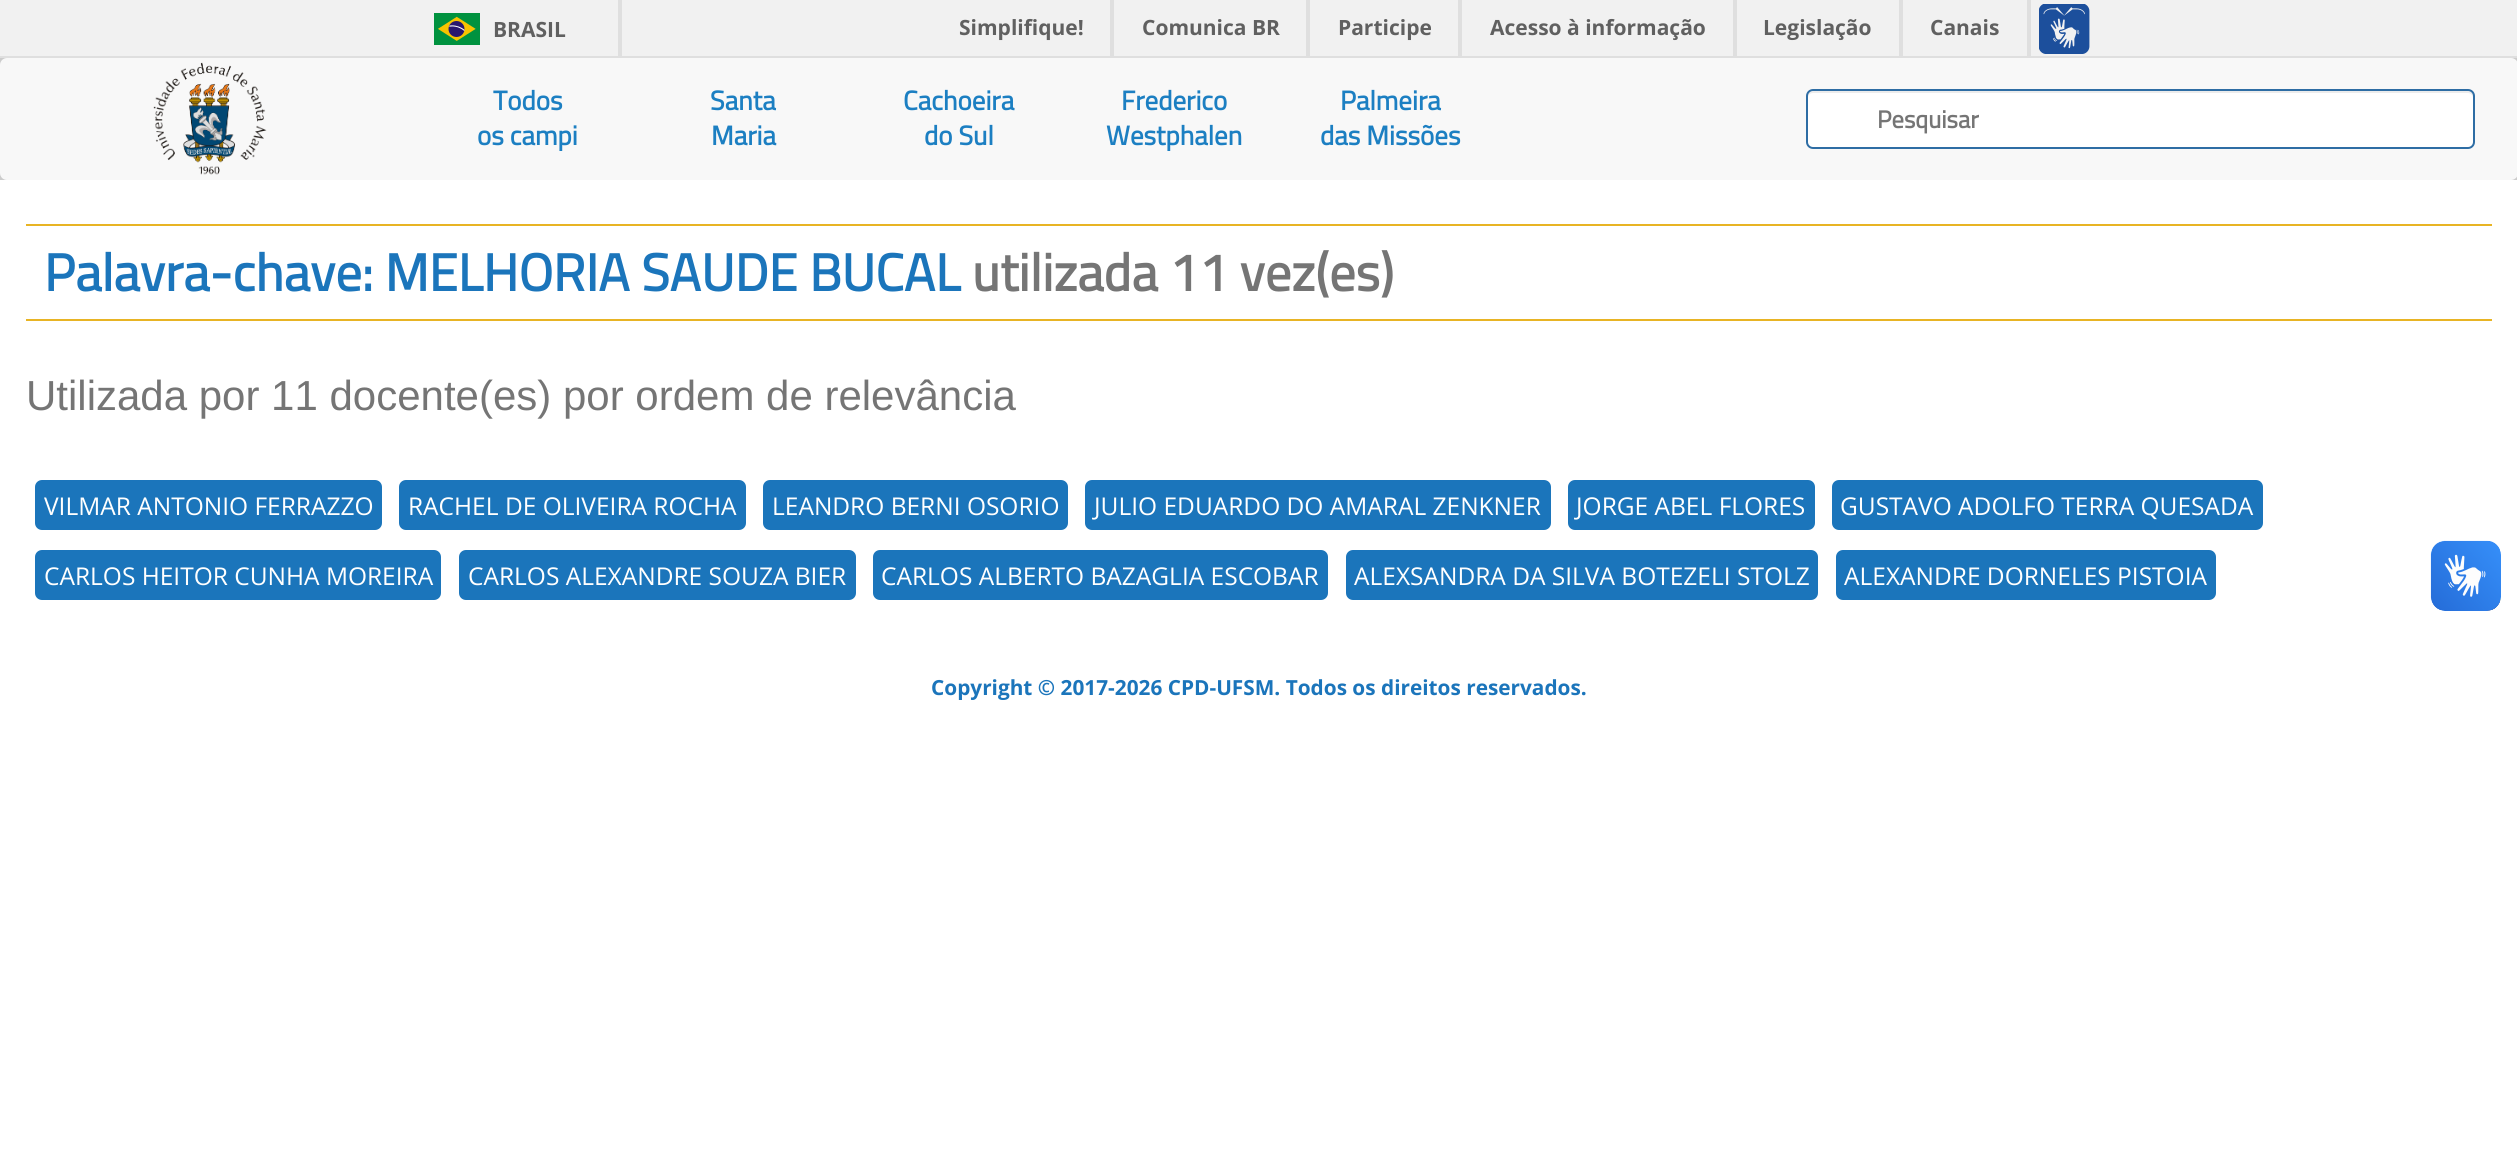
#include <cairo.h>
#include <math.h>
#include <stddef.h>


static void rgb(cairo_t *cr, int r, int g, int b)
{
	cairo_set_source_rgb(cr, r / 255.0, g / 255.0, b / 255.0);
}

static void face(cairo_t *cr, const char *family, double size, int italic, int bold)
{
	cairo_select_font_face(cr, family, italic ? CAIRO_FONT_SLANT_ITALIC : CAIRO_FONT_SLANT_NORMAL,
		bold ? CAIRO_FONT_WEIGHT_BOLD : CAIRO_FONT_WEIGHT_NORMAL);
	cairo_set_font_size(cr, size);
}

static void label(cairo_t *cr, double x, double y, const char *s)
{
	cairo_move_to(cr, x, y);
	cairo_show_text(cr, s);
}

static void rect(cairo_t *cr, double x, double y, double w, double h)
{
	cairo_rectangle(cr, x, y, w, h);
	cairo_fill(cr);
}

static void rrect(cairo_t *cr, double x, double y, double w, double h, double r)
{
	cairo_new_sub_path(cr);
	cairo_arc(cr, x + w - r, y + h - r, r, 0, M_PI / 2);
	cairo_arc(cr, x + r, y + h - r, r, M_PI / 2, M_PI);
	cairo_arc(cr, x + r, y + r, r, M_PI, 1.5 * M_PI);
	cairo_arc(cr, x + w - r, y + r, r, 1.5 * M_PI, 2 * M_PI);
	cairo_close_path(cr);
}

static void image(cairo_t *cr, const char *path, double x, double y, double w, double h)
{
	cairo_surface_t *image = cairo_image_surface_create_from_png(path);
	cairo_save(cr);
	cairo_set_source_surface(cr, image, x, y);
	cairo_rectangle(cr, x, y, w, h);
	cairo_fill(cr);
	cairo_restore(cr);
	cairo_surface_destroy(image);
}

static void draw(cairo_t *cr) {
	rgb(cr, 255, 255, 255);
	cairo_paint(cr);
	rgb(cr, 241, 241, 241);
	rect(cr, 0, 0, 2517, 56);
	rgb(cr, 223, 223, 223);
	rect(cr, 0, 56, 2517, 2);
	rect(cr, 618, 0, 4, 56);
	image(cr, "image0.png", 434, 13, 46, 32);
	face(cr, "Open Sans", 21, 0, 1);
	rgb(cr, 96, 96, 96);
	label(cr, 493, 37, "BRASIL");
	rgb(cr, 223, 223, 223);
	rect(cr, 1110, 0, 4, 56);
	rgb(cr, 96, 96, 96);
	label(cr, 959, 35, "Simplifique!");
	rgb(cr, 223, 223, 223);
	rect(cr, 1306, 0, 4, 56);
	rgb(cr, 96, 96, 96);
	label(cr, 1142, 35, "Comunica BR");
	rgb(cr, 223, 223, 223);
	rect(cr, 1458, 0, 4, 56);
	rgb(cr, 96, 96, 96);
	label(cr, 1338, 35, "Participe");
	rgb(cr, 223, 223, 223);
	rect(cr, 1733, 0, 4, 56);
	rgb(cr, 96, 96, 96);
	label(cr, 1490, 35, "Acesso à informação");
	rgb(cr, 223, 223, 223);
	rect(cr, 1899, 0, 4, 56);
	rgb(cr, 96, 96, 96);
	label(cr, 1763, 35, "Legislação");
	rgb(cr, 223, 223, 223);
	rect(cr, 2027, 0, 4, 56);
	rgb(cr, 96, 96, 96);
	label(cr, 1930, 35, "Canais");
	image(cr, "image1.png", 2039, 4, 51, 50);
	rgb(cr, 204, 204, 204);
	rect(cr, 0, 58, 2517, 122);
	rgb(cr, 248, 248, 248);
	rrect(cr, 0, 58, 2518, 122, 7);
	cairo_fill(cr);
	image(cr, "image2.png", 153, 62, 114, 113);
	face(cr, "Titillium Web", 27, 0, 1);
	rgb(cr, 28, 127, 194);
	label(cr, 493, 110, "Todos");
	label(cr, 477, 145, "os campi");
	label(cr, 710, 110, "Santa");
	label(cr, 711, 145, "Maria");
	label(cr, 903, 110, "Cachoeira");
	label(cr, 924, 145, "do Sul");
	label(cr, 1121, 110, "Frederico");
	label(cr, 1106, 145, "Westphalen");
	label(cr, 1340, 110, "Palmeira");
	label(cr, 1320, 145, "das Missões");
	rgb(cr, 255, 255, 255);
	rrect(cr, 1806, 89, 669, 60, 7);
	cairo_fill(cr);
	rgb(cr, 236, 236, 236);
	cairo_new_path(cr);
	cairo_move_to(cr, 1813, 93);
	cairo_line_to(cr, 2468, 93);
	cairo_curve_to(cr, 2470, 93, 2473, 95, 2473, 98);
	cairo_line_to(cr, 2473, 96);
	cairo_curve_to(cr, 2473, 93, 2471, 91, 2468, 91);
	cairo_line_to(cr, 1813, 91);
	cairo_curve_to(cr, 1810, 91, 1808, 93, 1808, 96);
	cairo_line_to(cr, 1808, 98);
	cairo_curve_to(cr, 1808, 95, 1810, 93, 1813, 93);
	cairo_close_path(cr);
	cairo_fill(cr);
	rrect(cr, 1807, 90, 667, 58, 6);
	rgb(cr, 46, 109, 164);
	cairo_stroke(cr);
	face(cr, "Titillium Web", 24.5, 0, 1);
	rgb(cr, 117, 117, 117);
	label(cr, 1877, 128, "Pesquisar");
	rgb(cr, 232, 180, 36);
	rect(cr, 26, 224, 2466, 2);
	rect(cr, 26, 319, 2466, 2);
	face(cr, "Titillium Web", 52.5, 0, 1);
	rgb(cr, 27, 117, 187);
	label(cr, 44, 291, "Palavra-chave: MELHORIA SAUDE BUCAL");
	rgb(cr, 117, 117, 117);
	label(cr, 972, 291, "utilizada 11 vez(es)");
	face(cr, "Liberation Sans", 42, 0, 0);
	label(cr, 26, 410, "Utilizada por 11 docente(es) por ordem de relevância");
	rgb(cr, 27, 117, 187);
	rrect(cr, 35, 480, 347, 50, 7);
	cairo_fill(cr);
	face(cr, "Open Sans", 24.5, 0, 0);
	rgb(cr, 255, 255, 255);
	label(cr, 44, 515, "VILMAR ANTONIO FERRAZZO");
	rgb(cr, 27, 117, 187);
	rrect(cr, 399, 480, 347, 50, 7);
	cairo_fill(cr);
	rgb(cr, 255, 255, 255);
	label(cr, 408, 515, "RACHEL DE OLIVEIRA ROCHA");
	rgb(cr, 27, 117, 187);
	rrect(cr, 763, 480, 305, 50, 7);
	cairo_fill(cr);
	rgb(cr, 255, 255, 255);
	label(cr, 772, 515, "LEANDRO BERNI OSORIO");
	rgb(cr, 27, 117, 187);
	rrect(cr, 1085, 480, 466, 50, 7);
	cairo_fill(cr);
	rgb(cr, 255, 255, 255);
	label(cr, 1094, 515, "JULIO EDUARDO DO AMARAL ZENKNER");
	rgb(cr, 27, 117, 187);
	rrect(cr, 1568, 480, 247, 50, 7);
	cairo_fill(cr);
	rgb(cr, 255, 255, 255);
	label(cr, 1576, 515, "JORGE ABEL FLORES");
	rgb(cr, 27, 117, 187);
	rrect(cr, 1832, 480, 431, 50, 7);
	cairo_fill(cr);
	rgb(cr, 255, 255, 255);
	label(cr, 1840, 515, "GUSTAVO ADOLFO TERRA QUESADA");
	rgb(cr, 27, 117, 187);
	rrect(cr, 35, 550, 406, 50, 7);
	cairo_fill(cr);
	rgb(cr, 255, 255, 255);
	label(cr, 44, 585, "CARLOS HEITOR CUNHA MOREIRA");
	rgb(cr, 27, 117, 187);
	rrect(cr, 459, 550, 397, 50, 7);
	cairo_fill(cr);
	rgb(cr, 255, 255, 255);
	label(cr, 468, 585, "CARLOS ALEXANDRE SOUZA BIER");
	rgb(cr, 27, 117, 187);
	rrect(cr, 873, 550, 455, 50, 7);
	cairo_fill(cr);
	rgb(cr, 255, 255, 255);
	label(cr, 881, 585, "CARLOS ALBERTO BAZAGLIA ESCOBAR");
	rgb(cr, 27, 117, 187);
	rrect(cr, 1346, 550, 472, 50, 7);
	cairo_fill(cr);
	rgb(cr, 255, 255, 255);
	label(cr, 1354, 585, "ALEXSANDRA DA SILVA BOTEZELI STOLZ");
	rgb(cr, 27, 117, 187);
	rrect(cr, 1836, 550, 380, 50, 7);
	cairo_fill(cr);
	rgb(cr, 255, 255, 255);
	label(cr, 1844, 585, "ALEXANDRE DORNELES PISTOIA");
	face(cr, "Open Sans", 20.8, 0, 1);
	rgb(cr, 27, 117, 187);
	label(cr, 931, 695, "Copyright © 2017-2026 CPD-UFSM. Todos os direitos reservados.");
	image(cr, "image3.png", 2430, 540, 71, 71);
	image(cr, "image4.png", 2431, 541, 70, 70);
}

int main(void) {
	cairo_surface_t *surface = cairo_image_surface_create(CAIRO_FORMAT_RGB24, 2517, 1150);
	cairo_t *cr = cairo_create(surface);
	cairo_font_options_t *options = cairo_font_options_create();
	cairo_font_options_set_hint_metrics(options, CAIRO_HINT_METRICS_OFF);
	cairo_font_options_set_hint_style(options, CAIRO_HINT_STYLE_NONE);
	cairo_set_font_options(cr, options);
	cairo_set_miter_limit(cr, 4);
	draw(cr);
	cairo_surface_write_to_png(surface, "render.png");
	cairo_font_options_destroy(options);
	cairo_destroy(cr);
	cairo_surface_destroy(surface);
	return 0;
}
